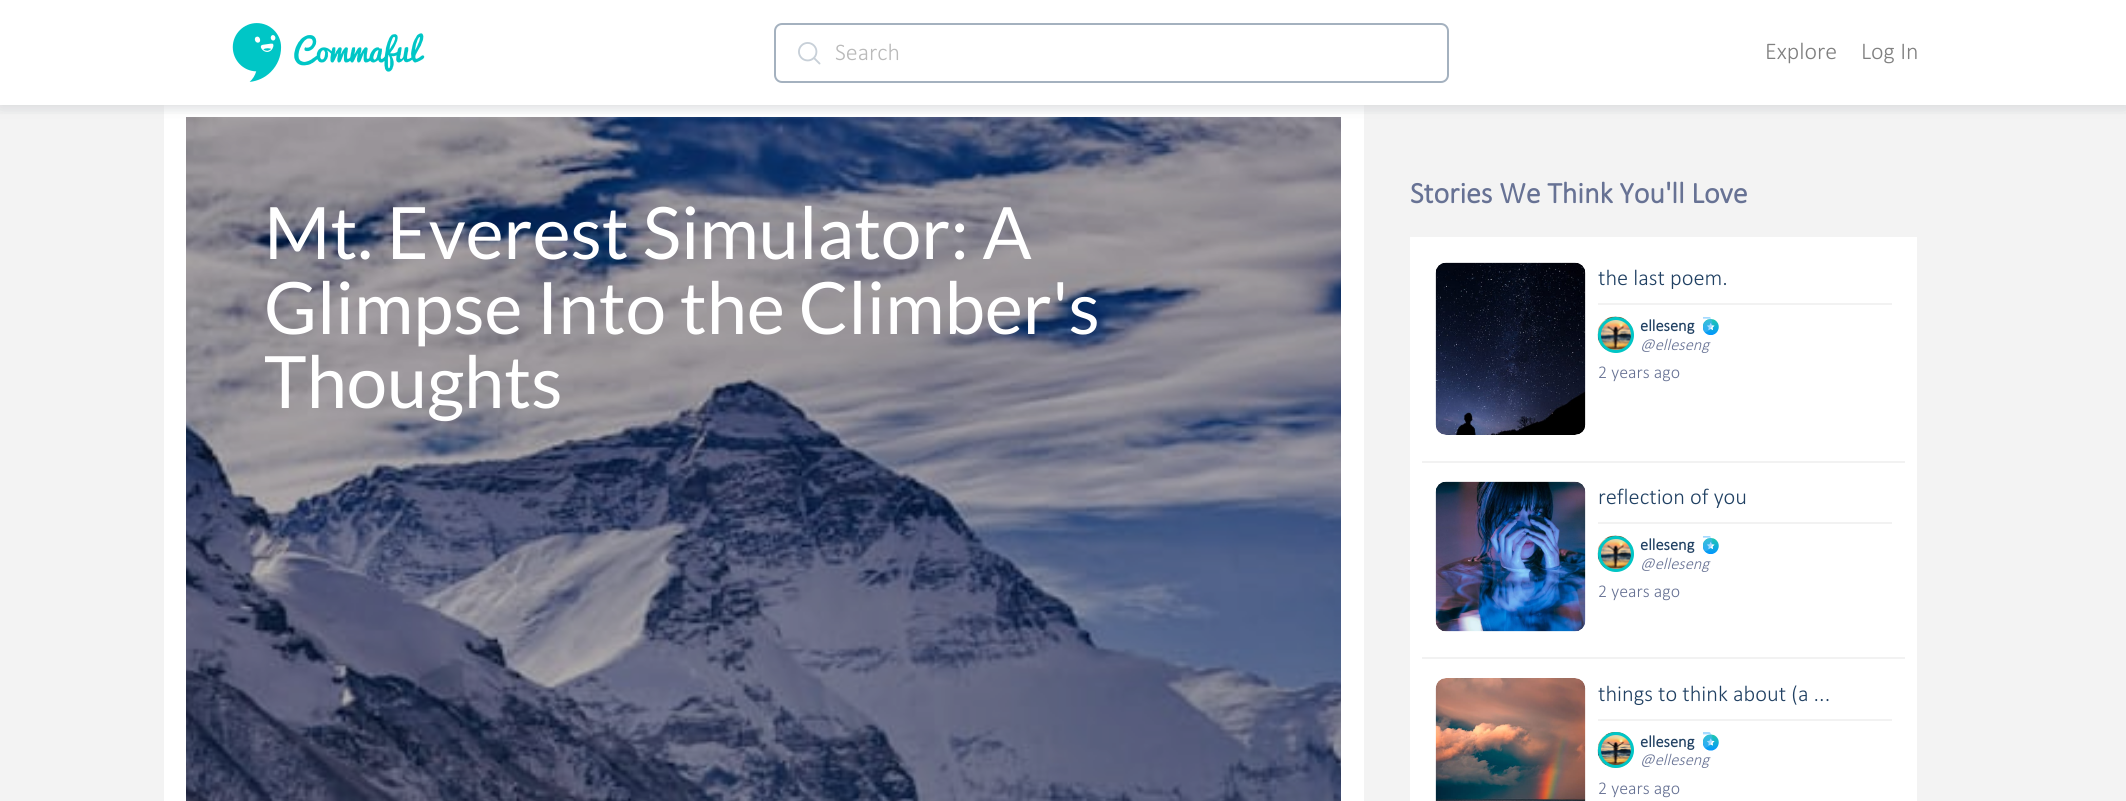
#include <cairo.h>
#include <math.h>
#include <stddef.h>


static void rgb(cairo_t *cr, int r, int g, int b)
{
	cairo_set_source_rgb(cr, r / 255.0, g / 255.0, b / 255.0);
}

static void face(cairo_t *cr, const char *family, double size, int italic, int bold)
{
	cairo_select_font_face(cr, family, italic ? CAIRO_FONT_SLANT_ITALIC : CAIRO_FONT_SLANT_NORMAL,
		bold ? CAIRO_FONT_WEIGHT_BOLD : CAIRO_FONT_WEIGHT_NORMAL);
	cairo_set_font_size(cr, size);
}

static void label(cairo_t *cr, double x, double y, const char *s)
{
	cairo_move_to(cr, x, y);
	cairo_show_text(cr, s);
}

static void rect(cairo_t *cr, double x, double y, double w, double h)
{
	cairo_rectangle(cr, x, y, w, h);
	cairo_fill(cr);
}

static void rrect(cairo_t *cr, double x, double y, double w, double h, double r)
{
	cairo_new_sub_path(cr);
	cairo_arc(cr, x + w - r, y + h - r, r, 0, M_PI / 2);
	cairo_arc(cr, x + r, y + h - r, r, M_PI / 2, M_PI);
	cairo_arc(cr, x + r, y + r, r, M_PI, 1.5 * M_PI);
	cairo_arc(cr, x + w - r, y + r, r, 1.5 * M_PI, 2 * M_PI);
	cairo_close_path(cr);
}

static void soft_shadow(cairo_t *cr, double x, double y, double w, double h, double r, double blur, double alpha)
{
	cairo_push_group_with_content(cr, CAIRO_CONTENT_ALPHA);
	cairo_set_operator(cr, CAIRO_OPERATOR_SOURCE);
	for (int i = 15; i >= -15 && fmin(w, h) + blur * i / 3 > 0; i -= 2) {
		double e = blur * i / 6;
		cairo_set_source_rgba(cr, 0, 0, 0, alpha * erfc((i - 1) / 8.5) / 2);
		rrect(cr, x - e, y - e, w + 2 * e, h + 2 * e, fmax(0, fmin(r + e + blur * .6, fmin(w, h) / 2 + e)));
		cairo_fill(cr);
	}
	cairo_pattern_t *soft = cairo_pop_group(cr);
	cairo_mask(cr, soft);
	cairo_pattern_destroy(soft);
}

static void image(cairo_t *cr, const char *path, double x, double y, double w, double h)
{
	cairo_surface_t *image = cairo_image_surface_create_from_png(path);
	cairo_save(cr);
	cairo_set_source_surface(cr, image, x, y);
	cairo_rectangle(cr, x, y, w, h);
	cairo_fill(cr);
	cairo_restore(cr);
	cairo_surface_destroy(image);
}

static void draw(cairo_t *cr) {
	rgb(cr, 255, 255, 255);
	cairo_paint(cr);
	rgb(cr, 243, 243, 243);
	rect(cr, 0, 105, 2126, 696);
	rgb(cr, 255, 255, 255);
	rect(cr, 164, 105, 1200, 696);
	image(cr, "image2.png", 186, 117, 1155, 684);
	cairo_save(cr);
	cairo_rectangle(cr, 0, 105, 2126, 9);
	cairo_clip(cr);
	rgb(cr, 33, 65, 99);
	soft_shadow(cr, 0, 3, 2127, 105, 0, 7.5, 0.1);
	cairo_restore(cr);
	cairo_save(cr);
	cairo_rectangle(cr, 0, 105, 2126, 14);
	cairo_clip(cr);
	rgb(cr, 220, 220, 220);
	soft_shadow(cr, 0, 0, 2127, 105, 0, 7, 1);
	cairo_restore(cr);
	image(cr, "image0.png", 232, 23, 193, 59);
	image(cr, "image1.png", 798, 42, 23, 23);
	cairo_set_source_rgba(cr, 1, 1, 1, 0.5);
	rrect(cr, 775, 24, 673, 58, 7);
	cairo_fill_preserve(cr);
	rgb(cr, 164, 177, 191);
	cairo_stroke(cr);
	face(cr, "Calibri Light", 24, 0, 0);
	rgb(cr, 186, 186, 186);
	label(cr, 835, 60, "Search");
	rgb(cr, 128, 128, 128);
	label(cr, 1765, 59, "Explore");
	label(cr, 1861, 59, "Log In");
	face(cr, "Lato", 72.25, 0, 0);
	rgb(cr, 255, 255, 255);
	label(cr, 264, 259, "Mt. Everest Simulator: A");
	label(cr, 264, 334, "Glimpse Into the Climber's");
	label(cr, 264, 408, "Thoughts");
	face(cr, "Calibri", 30, 0, 1);
	rgb(cr, 103, 114, 148);
	label(cr, 1410, 203, "Stories We Think You'll Love");
	rgb(cr, 255, 255, 255);
	rect(cr, 1410, 237, 507, 564);
	image(cr, "image3.png", 1435, 262, 151, 173);
	face(cr, "Calibri Light", 22.5, 0, 0);
	rgb(cr, 33, 65, 99);
	label(cr, 1598, 285, "the last poem.");
	rgb(cr, 242, 242, 242);
	rect(cr, 1598, 303, 294, 2);
	image(cr, "image4.png", 1597, 316, 37, 37);
	cairo_arc(cr, 1616, 335, 16.5, 0, 2 * M_PI);
	rgb(cr, 0, 198, 198);
	cairo_set_line_width(cr, 3);
	cairo_stroke(cr);
	face(cr, "Calibri", 16.5, 0, 1);
	rgb(cr, 33, 65, 99);
	label(cr, 1640, 331, "elleseng");
	image(cr, "image5.png", 1703, 317, 16, 18);
	face(cr, "Calibri Light", 16.5, 1, 0);
	rgb(cr, 103, 114, 148);
	label(cr, 1640, 350, "@elleseng");
	face(cr, "Calibri Light", 18, 0, 0);
	label(cr, 1598, 378, "2 years ago");
	rgb(cr, 242, 242, 242);
	rect(cr, 1422, 461, 483, 2);
	image(cr, "image6.png", 1435, 481, 151, 151);
	face(cr, "Calibri Light", 22.5, 0, 0);
	rgb(cr, 33, 65, 99);
	label(cr, 1598, 504, "reflection of you");
	rgb(cr, 242, 242, 242);
	rect(cr, 1598, 522, 294, 2);
	image(cr, "image4.png", 1597, 535, 37, 37);
	cairo_arc(cr, 1616, 554, 16.5, 0, 2 * M_PI);
	rgb(cr, 0, 198, 198);
	cairo_stroke(cr);
	face(cr, "Calibri", 16.5, 0, 1);
	rgb(cr, 33, 65, 99);
	label(cr, 1640, 550, "elleseng");
	image(cr, "image7.png", 1703, 536, 16, 18);
	face(cr, "Calibri Light", 16.5, 1, 0);
	rgb(cr, 103, 114, 148);
	label(cr, 1640, 569, "@elleseng");
	face(cr, "Calibri Light", 18, 0, 0);
	label(cr, 1598, 597, "2 years ago");
	rgb(cr, 242, 242, 242);
	rect(cr, 1422, 657, 483, 2);
	image(cr, "image8.png", 1435, 678, 151, 123);
	face(cr, "Calibri Light", 22.5, 0, 0);
	rgb(cr, 33, 65, 99);
	label(cr, 1598, 701, "things to think about (a ...");
	rgb(cr, 242, 242, 242);
	rect(cr, 1598, 719, 294, 2);
	image(cr, "image9.png", 1597, 732, 37, 36);
	cairo_arc(cr, 1616, 750, 16.5, 0, 2 * M_PI);
	rgb(cr, 0, 198, 198);
	cairo_stroke(cr);
	face(cr, "Calibri", 16.5, 0, 1);
	rgb(cr, 33, 65, 99);
	label(cr, 1640, 747, "elleseng");
	image(cr, "image10.png", 1703, 732, 16, 19);
	face(cr, "Calibri Light", 16.5, 1, 0);
	rgb(cr, 103, 114, 148);
	label(cr, 1640, 765, "@elleseng");
	face(cr, "Calibri Light", 18, 0, 0);
	label(cr, 1598, 794, "2 years ago");
}

int main(void) {
	cairo_surface_t *surface = cairo_image_surface_create(CAIRO_FORMAT_RGB24, 2126, 801);
	cairo_t *cr = cairo_create(surface);
	cairo_font_options_t *options = cairo_font_options_create();
	cairo_font_options_set_hint_metrics(options, CAIRO_HINT_METRICS_OFF);
	cairo_font_options_set_hint_style(options, CAIRO_HINT_STYLE_NONE);
	cairo_set_font_options(cr, options);
	cairo_set_miter_limit(cr, 4);
	draw(cr);
	cairo_surface_write_to_png(surface, "render.png");
	cairo_font_options_destroy(options);
	cairo_destroy(cr);
	cairo_surface_destroy(surface);
	return 0;
}
